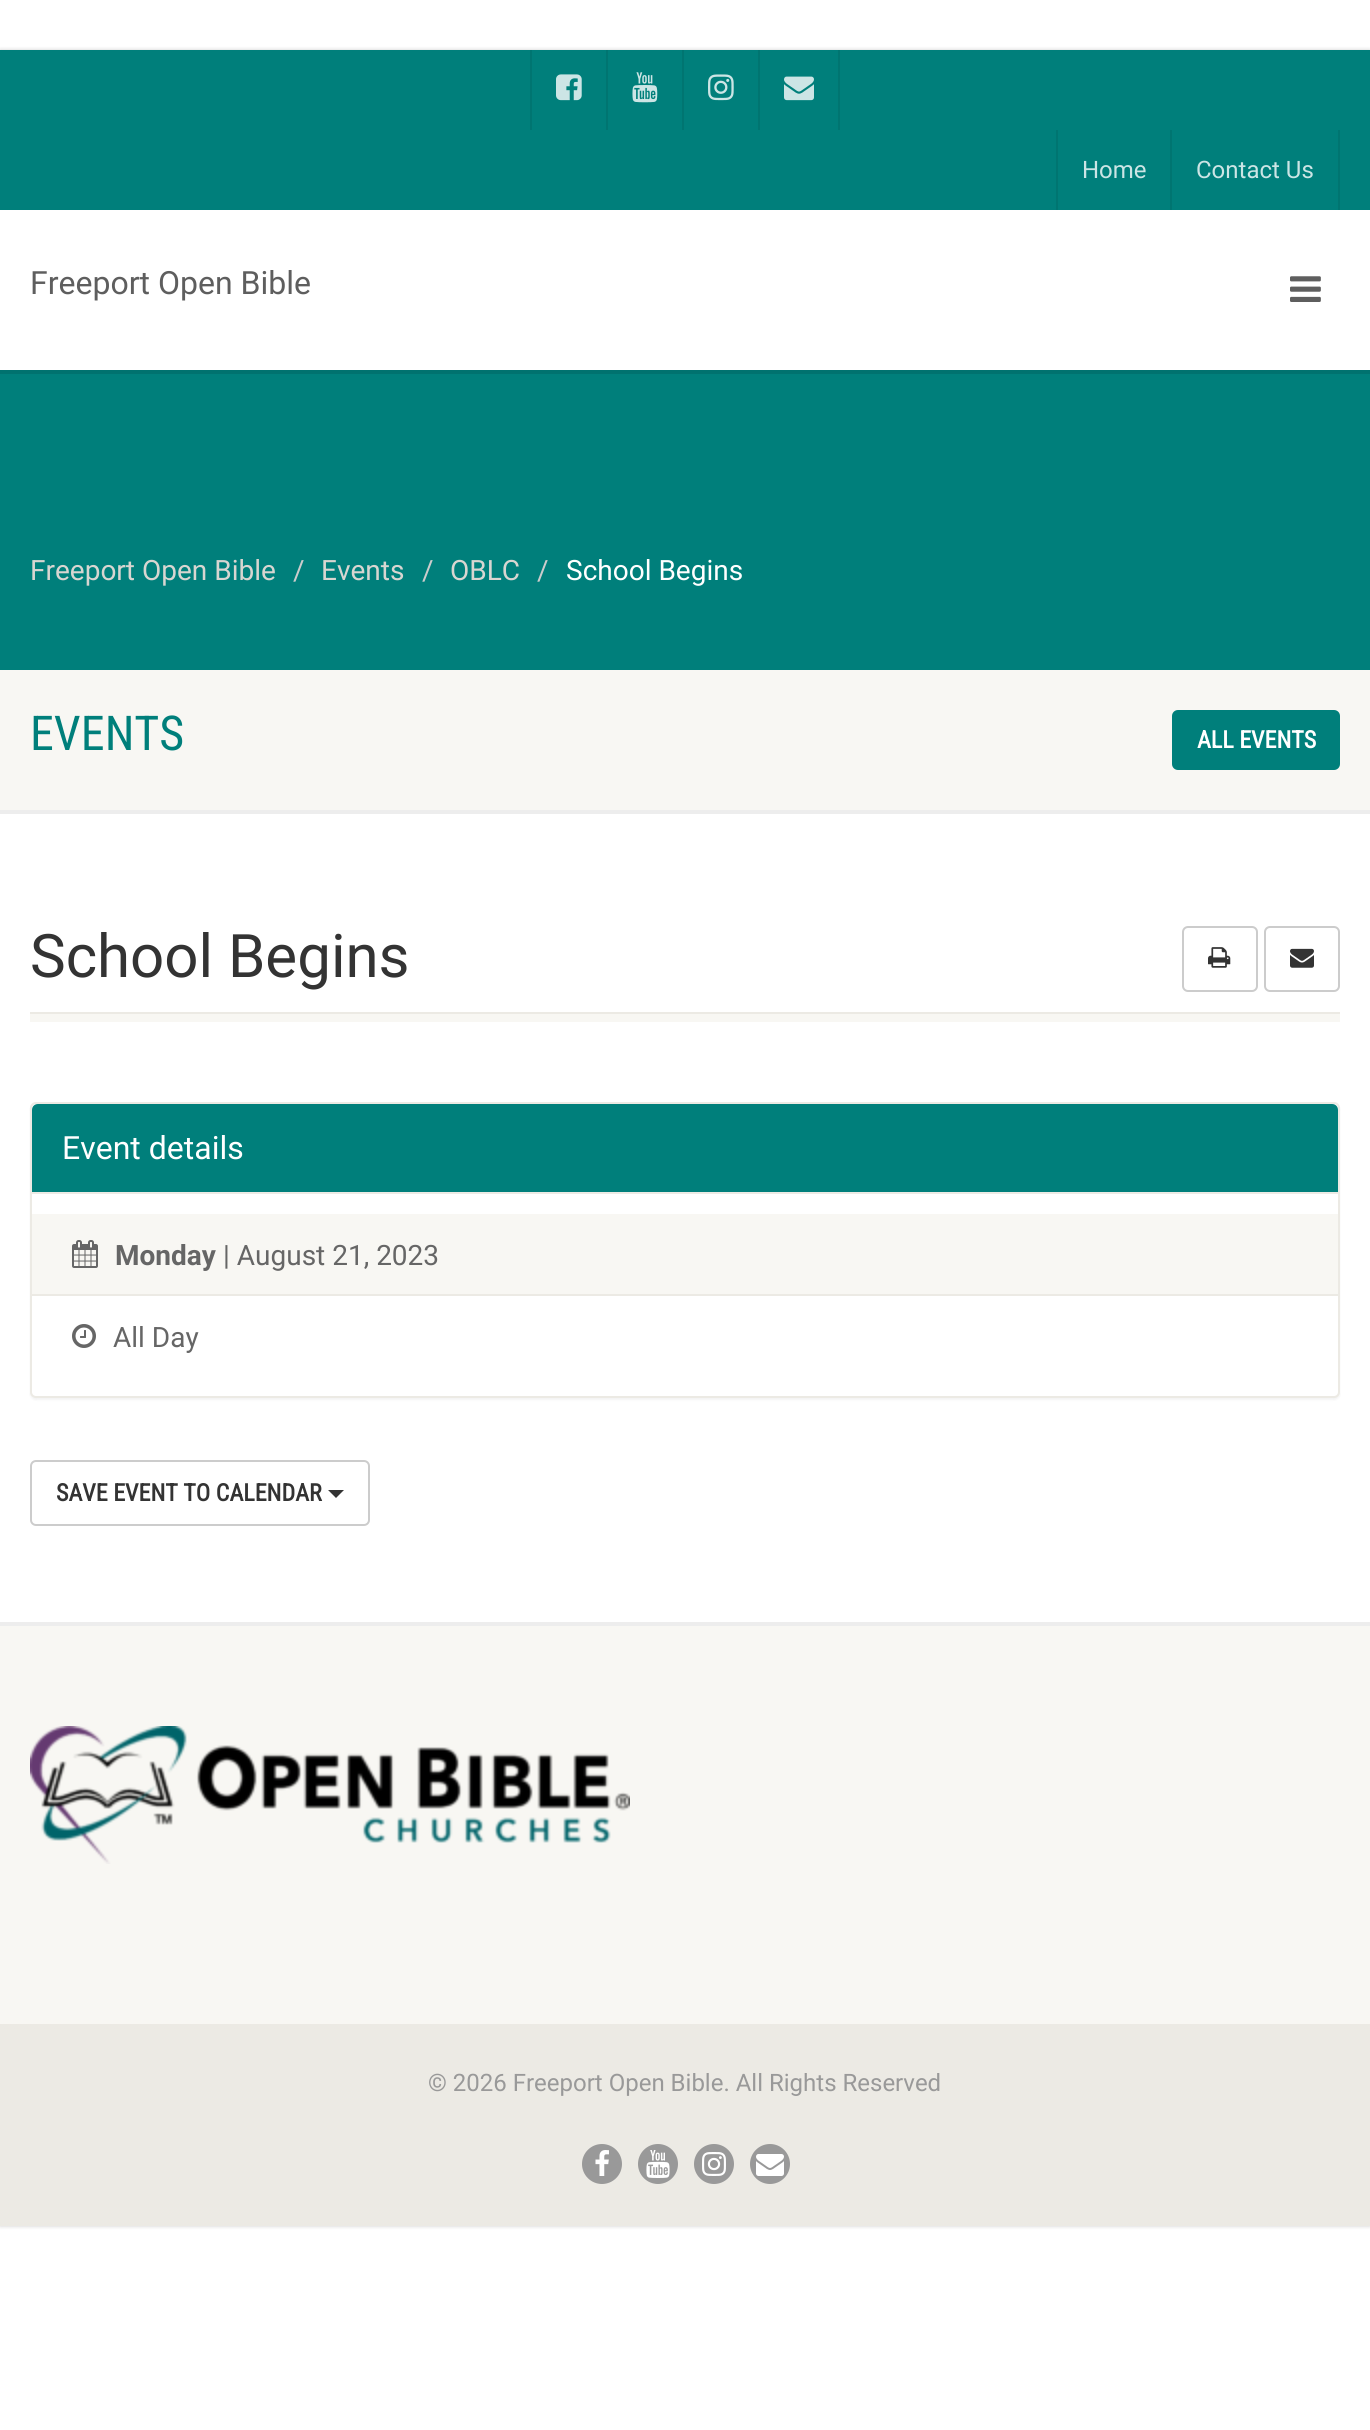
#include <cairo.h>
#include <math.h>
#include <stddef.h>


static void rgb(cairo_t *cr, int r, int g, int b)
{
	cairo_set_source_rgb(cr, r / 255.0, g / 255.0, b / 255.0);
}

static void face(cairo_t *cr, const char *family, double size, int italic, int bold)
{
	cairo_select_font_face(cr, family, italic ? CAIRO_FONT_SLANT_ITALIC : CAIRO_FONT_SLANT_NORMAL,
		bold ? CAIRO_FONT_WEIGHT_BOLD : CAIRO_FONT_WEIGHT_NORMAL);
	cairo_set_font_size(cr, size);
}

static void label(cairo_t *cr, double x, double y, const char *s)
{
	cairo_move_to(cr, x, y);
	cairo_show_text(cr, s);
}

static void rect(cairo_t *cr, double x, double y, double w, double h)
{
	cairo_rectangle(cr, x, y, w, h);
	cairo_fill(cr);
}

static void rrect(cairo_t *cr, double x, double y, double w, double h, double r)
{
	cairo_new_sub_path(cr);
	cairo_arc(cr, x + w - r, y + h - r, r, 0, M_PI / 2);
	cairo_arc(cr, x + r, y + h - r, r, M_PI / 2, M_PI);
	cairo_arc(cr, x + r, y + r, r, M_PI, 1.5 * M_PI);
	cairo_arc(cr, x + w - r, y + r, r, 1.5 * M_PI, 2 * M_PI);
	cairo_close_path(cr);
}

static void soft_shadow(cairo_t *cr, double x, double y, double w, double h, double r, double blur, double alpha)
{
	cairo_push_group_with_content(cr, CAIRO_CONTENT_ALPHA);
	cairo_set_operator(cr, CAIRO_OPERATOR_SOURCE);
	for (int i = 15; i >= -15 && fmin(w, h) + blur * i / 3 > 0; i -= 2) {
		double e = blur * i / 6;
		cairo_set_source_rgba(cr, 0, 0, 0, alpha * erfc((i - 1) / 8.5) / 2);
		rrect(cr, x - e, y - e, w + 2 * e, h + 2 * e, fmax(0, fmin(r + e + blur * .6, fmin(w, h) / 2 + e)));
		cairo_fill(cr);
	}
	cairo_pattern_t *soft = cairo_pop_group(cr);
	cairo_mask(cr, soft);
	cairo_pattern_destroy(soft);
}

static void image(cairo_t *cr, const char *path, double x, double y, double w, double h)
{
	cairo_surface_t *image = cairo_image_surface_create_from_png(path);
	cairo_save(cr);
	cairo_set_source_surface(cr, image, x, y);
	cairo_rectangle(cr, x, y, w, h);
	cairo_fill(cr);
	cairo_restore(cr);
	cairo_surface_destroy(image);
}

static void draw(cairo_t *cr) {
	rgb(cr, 255, 255, 255);
	cairo_paint(cr);
	cairo_save(cr);
	cairo_set_fill_rule(cr, CAIRO_FILL_RULE_EVEN_ODD);
	cairo_new_path(cr);
	cairo_move_to(cr, 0, 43);
	cairo_line_to(cr, 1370, 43);
	cairo_line_to(cr, 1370, 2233);
	cairo_line_to(cr, 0, 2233);
	cairo_close_path(cr);
	cairo_move_to(cr, 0, 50);
	cairo_line_to(cr, 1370, 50);
	cairo_line_to(cr, 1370, 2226);
	cairo_line_to(cr, 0, 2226);
	cairo_close_path(cr);
	cairo_clip(cr);
	rgb(cr, 0, 0, 0);
	soft_shadow(cr, 0, 50, 1370, 2176, 0, 2, 0.2);
	cairo_restore(cr);
	rgb(cr, 0, 127, 123);
	rect(cr, 0, 50, 1370, 160);
	rgb(cr, 0, 117, 113);
	rect(cr, 606, 50, 2, 80);
	rect(cr, 530, 50, 2, 80);
	image(cr, "image0.png", 556, 74, 26, 27);
	rect(cr, 682, 50, 2, 80);
	image(cr, "image1.png", 632, 72, 26, 31);
	rect(cr, 758, 50, 2, 80);
	image(cr, "image2.png", 708, 74, 26, 27);
	rect(cr, 838, 50, 2, 80);
	image(cr, "image3.png", 784, 76, 30, 25);
	rect(cr, 1170, 130, 2, 80);
	rect(cr, 1056, 130, 2, 80);
	face(cr, "Roboto", 24, 0, 0);
	rgb(cr, 204, 229, 229);
	label(cr, 1082, 178, "Home");
	rgb(cr, 0, 117, 113);
	rect(cr, 1338, 130, 2, 80);
	rgb(cr, 204, 229, 229);
	label(cr, 1196, 178, "Contact Us");
	rgb(cr, 0, 114, 111);
	rect(cr, 0, 370, 1370, 4);
	face(cr, "Roboto", 32, 0, 0);
	rgb(cr, 94, 94, 94);
	label(cr, 30, 294, "Freeport Open Bible");
	image(cr, "image4.png", 1290, 276, 31, 26);
	rgb(cr, 0, 127, 123);
	rect(cr, 0, 374, 1370, 296);
	face(cr, "Roboto", 28, 0, 0);
	rgb(cr, 216, 214, 209);
	label(cr, 30, 580, "Freeport Open Bible");
	rgb(cr, 204, 204, 204);
	label(cr, 293, 580, "/");
	rgb(cr, 216, 214, 209);
	label(cr, 321, 580, "Events");
	rgb(cr, 204, 204, 204);
	label(cr, 422, 580, "/");
	rgb(cr, 216, 214, 209);
	label(cr, 450, 580, "OBLC");
	rgb(cr, 204, 204, 204);
	label(cr, 537, 580, "/");
	rgb(cr, 255, 255, 255);
	label(cr, 566, 580, "School Begins");
	rgb(cr, 237, 237, 237);
	rect(cr, 0, 810, 1370, 4);
	rgb(cr, 248, 247, 243);
	rect(cr, 0, 670, 1370, 140);
	face(cr, "Roboto Condensed", 48, 0, 0);
	rgb(cr, 0, 127, 123);
	label(cr, 30, 750, "EVENTS");
	rrect(cr, 1172, 710, 168, 60, 6);
	cairo_fill(cr);
	face(cr, "Roboto Condensed", 24, 0, 1);
	rgb(cr, 255, 255, 255);
	label(cr, 1197, 748, "ALL EVENTS");
	rgb(cr, 236, 234, 228);
	rect(cr, 30, 1012, 1310, 2);
	face(cr, "Roboto", 60, 0, 0);
	rgb(cr, 51, 51, 51);
	label(cr, 30, 977, "School Begins");
	rrect(cr, 1183, 927, 74, 64, 5);
	rgb(cr, 204, 204, 204);
	cairo_stroke(cr);
	image(cr, "image5.png", 1208, 947, 23, 21);
	rrect(cr, 1265, 927, 74, 64, 5);
	cairo_stroke(cr);
	image(cr, "image6.png", 1290, 948, 24, 20);
	rgb(cr, 248, 247, 243);
	rect(cr, 30, 1014, 1310, 8);
	rgb(cr, 0, 0, 0);
	soft_shadow(cr, 30, 1104, 1310, 296, 6, 1, 0.05);
	rgb(cr, 255, 255, 255);
	rrect(cr, 31, 1103, 1308, 294, 5);
	cairo_fill_preserve(cr);
	rgb(cr, 236, 234, 228);
	cairo_stroke(cr);
	rgb(cr, 0, 127, 123);
	cairo_new_path(cr);
	cairo_move_to(cr, 38, 1104);
	cairo_line_to(cr, 1332, 1104);
	cairo_curve_to(cr, 1335.5, 1104, 1338, 1106.5, 1338, 1110);
	cairo_line_to(cr, 1338, 1194);
	cairo_line_to(cr, 32, 1194);
	cairo_line_to(cr, 32, 1110);
	cairo_curve_to(cr, 32, 1106.5, 34.5, 1104, 38, 1104);
	cairo_close_path(cr);
	cairo_fill(cr);
	rgb(cr, 236, 234, 228);
	rect(cr, 32, 1192, 1306, 2);
	face(cr, "Roboto", 32, 0, 0);
	rgb(cr, 255, 255, 255);
	label(cr, 62, 1159, "Event details");
	rgb(cr, 248, 247, 243);
	rect(cr, 32, 1214, 1306, 80);
	rgb(cr, 236, 234, 228);
	rect(cr, 32, 1294, 1306, 2);
	image(cr, "image7.png", 72, 1240, 26, 28);
	face(cr, "Roboto", 28, 0, 1);
	rgb(cr, 102, 102, 102);
	label(cr, 115, 1265, "Monday");
	face(cr, "Roboto", 28, 0, 0);
	label(cr, 223, 1265, "| August 21, 2023");
	image(cr, "image8.png", 72, 1324, 24, 24);
	label(cr, 113, 1347, "All Day");
	rrect(cr, 31, 1461, 338, 64, 5);
	rgb(cr, 204, 204, 204);
	cairo_stroke(cr);
	face(cr, "Roboto Condensed", 24, 0, 1);
	rgb(cr, 51, 51, 51);
	label(cr, 56, 1501, "SAVE EVENT TO CALENDAR");
	cairo_new_path(cr);
	cairo_move_to(cr, 328, 1490);
	cairo_line_to(cr, 344, 1490);
	cairo_line_to(cr, 336, 1498);
	cairo_close_path(cr);
	cairo_fill(cr);
	rgb(cr, 237, 237, 237);
	rect(cr, 0, 1622, 1370, 4);
	rgb(cr, 248, 247, 243);
	rect(cr, 0, 1626, 1370, 398);
	image(cr, "image9.png", 30, 1726, 600, 138);
	rgb(cr, 236, 234, 228);
	rect(cr, 0, 2024, 1370, 202);
	face(cr, "Roboto", 24, 0, 0);
	rgb(cr, 153, 153, 153);
	label(cr, 428, 2091, "© 2026 Freeport Open Bible. All Rights Reserved");
	cairo_new_path(cr);
	cairo_arc(cr, 602, 2164, 20, 0, 2 * M_PI);
	cairo_fill(cr);
	image(cr, "image10.png", 595, 2150, 14, 26);
	cairo_arc(cr, 658, 2164, 20, 0, 2 * M_PI);
	cairo_fill(cr);
	image(cr, "image11.png", 646, 2150, 24, 28);
	cairo_arc(cr, 714, 2164, 20, 0, 2 * M_PI);
	cairo_fill(cr);
	image(cr, "image12.png", 702, 2152, 24, 24);
	cairo_arc(cr, 770, 2164, 20, 0, 2 * M_PI);
	cairo_fill(cr);
	image(cr, "image13.png", 756, 2154, 28, 22);
}

int main(void) {
	cairo_surface_t *surface = cairo_image_surface_create(CAIRO_FORMAT_RGB24, 1370, 2430);
	cairo_t *cr = cairo_create(surface);
	cairo_font_options_t *options = cairo_font_options_create();
	cairo_font_options_set_hint_metrics(options, CAIRO_HINT_METRICS_OFF);
	cairo_font_options_set_hint_style(options, CAIRO_HINT_STYLE_NONE);
	cairo_set_font_options(cr, options);
	cairo_set_miter_limit(cr, 4);
	draw(cr);
	cairo_surface_write_to_png(surface, "render.png");
	cairo_font_options_destroy(options);
	cairo_destroy(cr);
	cairo_surface_destroy(surface);
	return 0;
}
